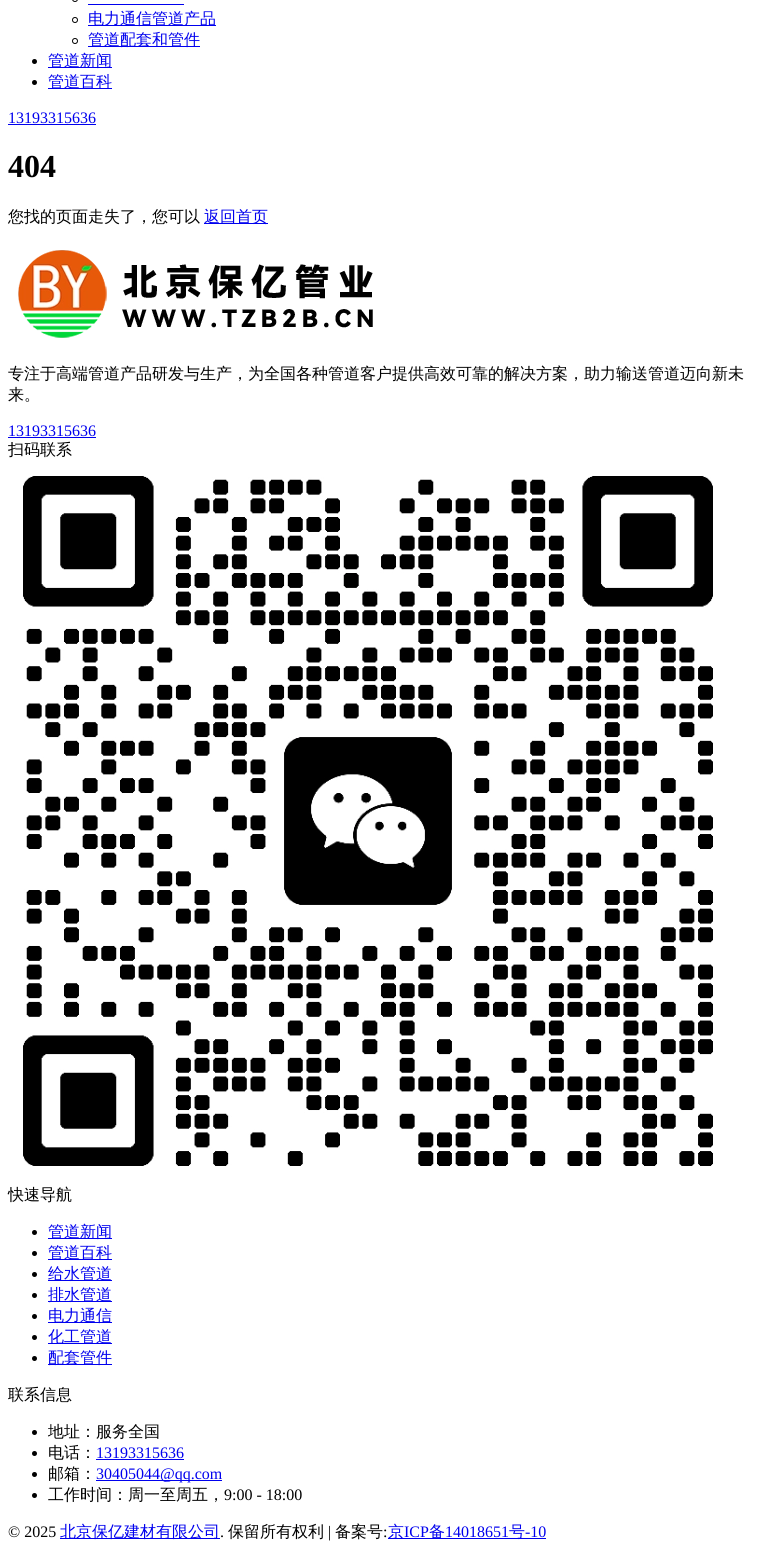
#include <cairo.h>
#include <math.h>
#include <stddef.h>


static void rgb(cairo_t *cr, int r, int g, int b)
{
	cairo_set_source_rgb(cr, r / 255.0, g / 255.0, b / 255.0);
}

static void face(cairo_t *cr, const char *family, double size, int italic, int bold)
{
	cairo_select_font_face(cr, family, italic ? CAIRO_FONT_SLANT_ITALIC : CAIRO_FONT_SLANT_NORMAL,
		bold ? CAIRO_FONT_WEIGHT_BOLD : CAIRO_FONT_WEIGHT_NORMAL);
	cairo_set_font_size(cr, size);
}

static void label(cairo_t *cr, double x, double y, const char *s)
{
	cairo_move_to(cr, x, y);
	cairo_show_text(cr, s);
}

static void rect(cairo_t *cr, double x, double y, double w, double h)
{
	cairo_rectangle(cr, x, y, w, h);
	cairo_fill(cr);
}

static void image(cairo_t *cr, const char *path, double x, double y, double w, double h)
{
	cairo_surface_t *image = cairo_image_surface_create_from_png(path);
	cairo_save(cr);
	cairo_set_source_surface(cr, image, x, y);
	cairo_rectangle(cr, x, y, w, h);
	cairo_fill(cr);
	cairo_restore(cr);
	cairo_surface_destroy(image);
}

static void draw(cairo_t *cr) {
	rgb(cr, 255, 255, 255);
	cairo_paint(cr);
	cairo_arc(cr, 75, -1, 2.5, 0, 2 * M_PI);
	rgb(cr, 0, 0, 0);
	cairo_set_line_width(cr, 1);
	cairo_stroke(cr);
	rgb(cr, 0, 0, 238);
	rect(cr, 88, 4, 96, 1);
	cairo_arc(cr, 75, 20, 2.5, 0, 2 * M_PI);
	rgb(cr, 0, 0, 0);
	cairo_stroke(cr);
	rgb(cr, 0, 0, 238);
	rect(cr, 88, 25, 128, 1);
	face(cr, "WenQuanYi Zen Hei Medium", 16, 0, 0);
	label(cr, 88, 24, "电力通信管道产品");
	cairo_new_path(cr);
	cairo_arc(cr, 75, 41, 2.5, 0, 2 * M_PI);
	rgb(cr, 0, 0, 0);
	cairo_stroke(cr);
	rgb(cr, 0, 0, 238);
	rect(cr, 88, 46, 112, 1);
	label(cr, 88, 45, "管道配套和管件");
	rgb(cr, 0, 0, 0);
	cairo_new_path(cr);
	cairo_arc(cr, 34.5, 61.5, 2.5, 0, 2 * M_PI);
	cairo_fill(cr);
	rgb(cr, 0, 0, 238);
	rect(cr, 48, 67, 64, 1);
	label(cr, 48, 66, "管道新闻");
	rgb(cr, 0, 0, 0);
	cairo_new_path(cr);
	cairo_arc(cr, 34.5, 82.5, 2.5, 0, 2 * M_PI);
	cairo_fill(cr);
	rgb(cr, 0, 0, 238);
	rect(cr, 48, 88, 64, 1);
	label(cr, 48, 87, "管道百科");
	face(cr, "Liberation Serif", 16, 0, 0);
	label(cr, 8, 123, "13193315636");
	rect(cr, 8, 124, 88, 1);
	face(cr, "Liberation Serif", 32, 0, 1);
	rgb(cr, 0, 0, 0);
	label(cr, 8, 177, "404");
	face(cr, "WenQuanYi Zen Hei Medium", 16, 0, 0);
	label(cr, 8, 222, "您找的页面走失了，您可以");
	rgb(cr, 0, 0, 238);
	rect(cr, 204, 223, 64, 1);
	label(cr, 204, 222, "返回首页");
	image(cr, "image0.png", 18, 250, 355, 88);
	rgb(cr, 0, 0, 0);
	label(cr, 8, 379, "专注于高端管道产品研发与生产，为全国各种管道客户提供高效可靠的解决方案，助力输送管道迈向新未");
	label(cr, 8, 400, "来。");
	face(cr, "Liberation Serif", 16, 0, 0);
	rgb(cr, 0, 0, 238);
	label(cr, 8, 436, "13193315636");
	rect(cr, 8, 437, 88, 1);
	face(cr, "WenQuanYi Zen Hei Medium", 16, 0, 0);
	rgb(cr, 0, 0, 0);
	label(cr, 8, 455, "扫码联系");
	image(cr, "image1.png", 23, 476, 690, 690);
	label(cr, 8, 1200, "快速导航");
	cairo_new_path(cr);
	cairo_arc(cr, 34.5, 1232.5, 2.5, 0, 2 * M_PI);
	cairo_fill(cr);
	rgb(cr, 0, 0, 238);
	rect(cr, 48, 1238, 64, 1);
	label(cr, 48, 1237, "管道新闻");
	rgb(cr, 0, 0, 0);
	cairo_new_path(cr);
	cairo_arc(cr, 34.5, 1253.5, 2.5, 0, 2 * M_PI);
	cairo_fill(cr);
	rgb(cr, 0, 0, 238);
	rect(cr, 48, 1259, 64, 1);
	label(cr, 48, 1258, "管道百科");
	rgb(cr, 0, 0, 0);
	cairo_new_path(cr);
	cairo_arc(cr, 34.5, 1274.5, 2.5, 0, 2 * M_PI);
	cairo_fill(cr);
	rgb(cr, 0, 0, 238);
	rect(cr, 48, 1280, 64, 1);
	label(cr, 48, 1279, "给水管道");
	rgb(cr, 0, 0, 0);
	cairo_new_path(cr);
	cairo_arc(cr, 34.5, 1295.5, 2.5, 0, 2 * M_PI);
	cairo_fill(cr);
	rgb(cr, 0, 0, 238);
	rect(cr, 48, 1301, 64, 1);
	label(cr, 48, 1300, "排水管道");
	rgb(cr, 0, 0, 0);
	cairo_new_path(cr);
	cairo_arc(cr, 34.5, 1316.5, 2.5, 0, 2 * M_PI);
	cairo_fill(cr);
	rgb(cr, 0, 0, 238);
	rect(cr, 48, 1322, 64, 1);
	label(cr, 48, 1321, "电力通信");
	rgb(cr, 0, 0, 0);
	cairo_new_path(cr);
	cairo_arc(cr, 34.5, 1337.5, 2.5, 0, 2 * M_PI);
	cairo_fill(cr);
	rgb(cr, 0, 0, 238);
	rect(cr, 48, 1343, 64, 1);
	label(cr, 48, 1342, "化工管道");
	rgb(cr, 0, 0, 0);
	cairo_new_path(cr);
	cairo_arc(cr, 34.5, 1358.5, 2.5, 0, 2 * M_PI);
	cairo_fill(cr);
	rgb(cr, 0, 0, 238);
	rect(cr, 48, 1364, 64, 1);
	label(cr, 48, 1363, "配套管件");
	rgb(cr, 0, 0, 0);
	label(cr, 8, 1400, "联系信息");
	cairo_new_path(cr);
	cairo_arc(cr, 34.5, 1432.5, 2.5, 0, 2 * M_PI);
	cairo_fill(cr);
	label(cr, 48, 1437, "地址：服务全国");
	cairo_new_path(cr);
	cairo_arc(cr, 34.5, 1453.5, 2.5, 0, 2 * M_PI);
	cairo_fill(cr);
	label(cr, 48, 1458, "电话：");
	face(cr, "Liberation Serif", 16, 0, 0);
	rgb(cr, 0, 0, 238);
	label(cr, 96, 1458, "13193315636");
	rect(cr, 96, 1459, 88, 1);
	rgb(cr, 0, 0, 0);
	cairo_new_path(cr);
	cairo_arc(cr, 34.5, 1474.5, 2.5, 0, 2 * M_PI);
	cairo_fill(cr);
	face(cr, "WenQuanYi Zen Hei Medium", 16, 0, 0);
	label(cr, 48, 1479, "邮箱：");
	rgb(cr, 0, 0, 238);
	rect(cr, 96, 1480, 126, 1);
	face(cr, "Liberation Serif", 16, 0, 0);
	label(cr, 96, 1479, "30405044@qq.com");
	rgb(cr, 0, 0, 0);
	cairo_new_path(cr);
	cairo_arc(cr, 34.5, 1495.5, 2.5, 0, 2 * M_PI);
	cairo_fill(cr);
	face(cr, "WenQuanYi Zen Hei Medium", 16, 0, 0);
	label(cr, 48, 1500, "工作时间：周一至周五，");
	face(cr, "Liberation Serif", 16, 0, 0);
	label(cr, 224, 1500, "9:00 - 18:00");
	label(cr, 8, 1537, "© 2025");
	rgb(cr, 0, 0, 238);
	rect(cr, 60, 1538, 160, 1);
	face(cr, "WenQuanYi Zen Hei Medium", 16, 0, 0);
	label(cr, 60, 1537, "北京保亿建材有限公司");
	face(cr, "Liberation Serif", 16, 0, 0);
	rgb(cr, 0, 0, 0);
	label(cr, 220, 1537, ".");
	face(cr, "WenQuanYi Zen Hei Medium", 16, 0, 0);
	label(cr, 228, 1537, "保留所有权利");
	face(cr, "Liberation Serif", 16, 0, 0);
	label(cr, 328, 1537, "|");
	face(cr, "WenQuanYi Zen Hei Medium", 16, 0, 0);
	label(cr, 335, 1537, "备案号");
	face(cr, "Liberation Serif", 16, 0, 0);
	label(cr, 383, 1537, ":");
	rgb(cr, 0, 0, 238);
	rect(cr, 388, 1538, 158, 1);
	face(cr, "WenQuanYi Zen Hei Medium", 16, 0, 0);
	label(cr, 388, 1537, "京");
	face(cr, "Liberation Serif", 16, 0, 0);
	label(cr, 404, 1537, "ICP");
	face(cr, "WenQuanYi Zen Hei Medium", 16, 0, 0);
	label(cr, 429, 1537, "备");
	face(cr, "Liberation Serif", 16, 0, 0);
	label(cr, 445, 1537, "14018651");
	face(cr, "WenQuanYi Zen Hei Medium", 16, 0, 0);
	label(cr, 509, 1537, "号");
	face(cr, "Liberation Serif", 16, 0, 0);
	label(cr, 525, 1537, "-10");
}

int main(void) {
	cairo_surface_t *surface = cairo_image_surface_create(CAIRO_FORMAT_RGB24, 767, 1559);
	cairo_t *cr = cairo_create(surface);
	cairo_font_options_t *options = cairo_font_options_create();
	cairo_font_options_set_hint_metrics(options, CAIRO_HINT_METRICS_OFF);
	cairo_font_options_set_hint_style(options, CAIRO_HINT_STYLE_NONE);
	cairo_set_font_options(cr, options);
	cairo_set_miter_limit(cr, 4);
	draw(cr);
	cairo_surface_write_to_png(surface, "render.png");
	cairo_font_options_destroy(options);
	cairo_destroy(cr);
	cairo_surface_destroy(surface);
	return 0;
}
